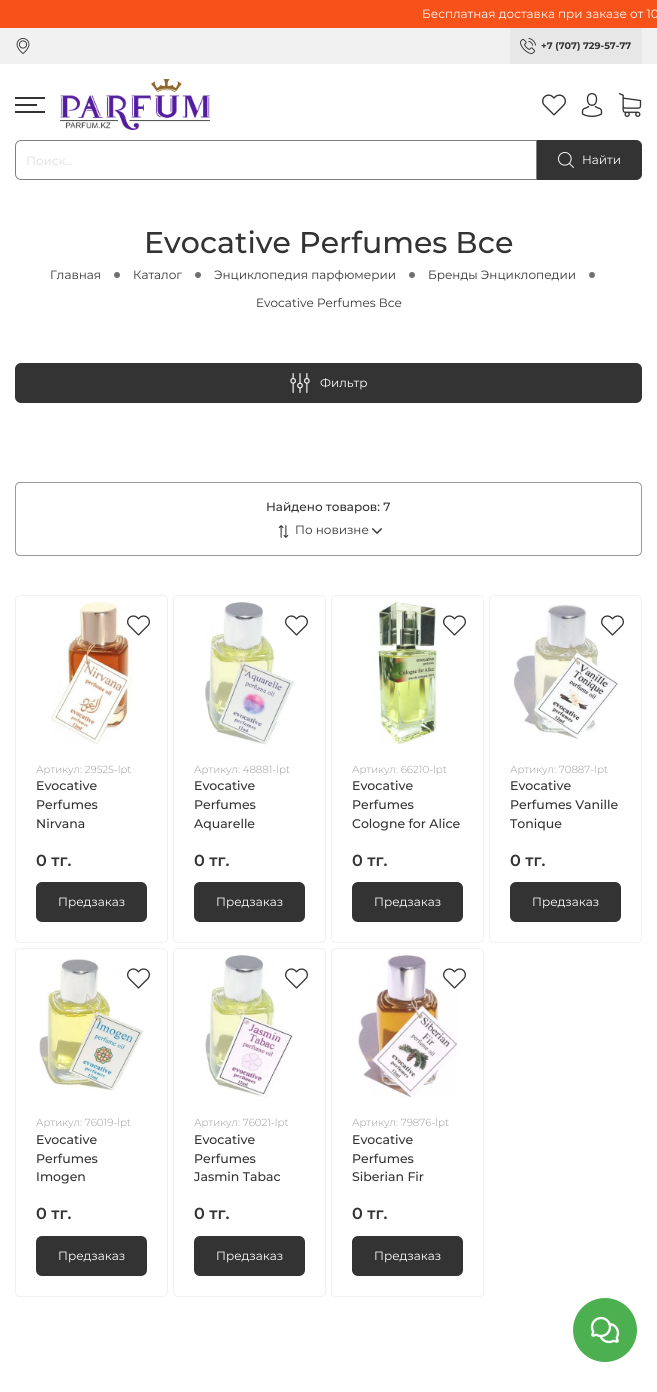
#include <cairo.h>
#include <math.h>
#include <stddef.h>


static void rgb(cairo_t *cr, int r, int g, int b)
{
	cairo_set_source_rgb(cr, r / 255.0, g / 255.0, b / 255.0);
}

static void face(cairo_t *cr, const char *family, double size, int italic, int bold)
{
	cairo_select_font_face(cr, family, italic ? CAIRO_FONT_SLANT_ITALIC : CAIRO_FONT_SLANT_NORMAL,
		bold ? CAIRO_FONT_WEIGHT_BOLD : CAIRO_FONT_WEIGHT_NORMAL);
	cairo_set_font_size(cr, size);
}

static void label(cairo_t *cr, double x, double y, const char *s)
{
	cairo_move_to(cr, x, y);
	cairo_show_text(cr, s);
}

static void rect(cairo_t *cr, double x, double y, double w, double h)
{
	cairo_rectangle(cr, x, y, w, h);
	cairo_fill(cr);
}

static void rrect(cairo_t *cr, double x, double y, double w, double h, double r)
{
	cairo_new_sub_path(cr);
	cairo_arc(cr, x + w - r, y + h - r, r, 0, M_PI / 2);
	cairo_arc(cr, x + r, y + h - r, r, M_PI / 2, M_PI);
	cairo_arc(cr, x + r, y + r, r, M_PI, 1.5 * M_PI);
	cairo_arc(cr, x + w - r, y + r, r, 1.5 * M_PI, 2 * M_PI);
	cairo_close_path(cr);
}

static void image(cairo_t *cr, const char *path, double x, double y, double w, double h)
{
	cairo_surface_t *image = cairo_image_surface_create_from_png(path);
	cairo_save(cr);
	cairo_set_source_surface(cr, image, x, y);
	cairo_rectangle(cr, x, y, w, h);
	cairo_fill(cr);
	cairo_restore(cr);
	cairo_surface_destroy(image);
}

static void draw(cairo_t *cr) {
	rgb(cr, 255, 255, 255);
	cairo_paint(cr);
	rgb(cr, 246, 82, 25);
	rect(cr, 0, 0, 657, 28);
	face(cr, "Montserrat", 12, 0, 0);
	rgb(cr, 255, 255, 255);
	label(cr, 422, 18, "Бесплатная доставка при заказе от 10");
	rgb(cr, 241, 241, 241);
	rect(cr, 0, 28, 657, 36);
	image(cr, "image0.png", 16, 38, 14, 16);
	rgb(cr, 231, 231, 231);
	rect(cr, 510, 28, 132, 36);
	image(cr, "image1.png", 520, 38, 16, 16);
	face(cr, "Montserrat", 9.5, 0, 1);
	rgb(cr, 51, 51, 51);
	label(cr, 541, 49, "+7 (707) 729-57-77");
	rect(cr, 15, 97, 30, 2);
	rect(cr, 15, 104, 22, 2);
	rect(cr, 15, 111, 30, 2);
	image(cr, "image2.png", 60, 79, 150, 51);
	image(cr, "image3.png", 542, 94, 24, 22);
	image(cr, "image4.png", 581, 93, 22, 24);
	image(cr, "image5.png", 618, 93, 24, 24);
	cairo_new_path(cr);
	cairo_move_to(cr, 21, 140.5);
	cairo_line_to(cr, 536.5, 140.5);
	cairo_line_to(cr, 536.5, 179.5);
	cairo_line_to(cr, 21, 179.5);
	cairo_curve_to(cr, 18, 179.5, 15.5, 177, 15.5, 174);
	cairo_line_to(cr, 15.5, 146);
	cairo_curve_to(cr, 15.5, 143, 18, 140.5, 21, 140.5);
	cairo_close_path(cr);
	rgb(cr, 128, 128, 128);
	cairo_set_line_width(cr, 1);
	cairo_stroke(cr);
	face(cr, "Montserrat", 12, 0, 0);
	rgb(cr, 221, 221, 221);
	label(cr, 26, 165, "Поиск...");
	rgb(cr, 51, 51, 51);
	cairo_new_path(cr);
	cairo_move_to(cr, 537, 140);
	cairo_line_to(cr, 636, 140);
	cairo_curve_to(cr, 639.5, 140, 642, 142.5, 642, 146);
	cairo_line_to(cr, 642, 174);
	cairo_curve_to(cr, 642, 177.5, 639.5, 180, 636, 180);
	cairo_line_to(cr, 537, 180);
	cairo_close_path(cr);
	cairo_fill(cr);
	image(cr, "image6.png", 558, 152, 16, 16);
	rgb(cr, 255, 255, 255);
	label(cr, 582, 164, "Найти");
	face(cr, "Montserrat Medium", 30, 0, 0);
	rgb(cr, 51, 51, 51);
	label(cr, 144, 253, "Evocative Perfumes Все");
	face(cr, "Montserrat", 12, 0, 0);
	label(cr, 50, 279, "Главная");
	rgb(cr, 112, 112, 112);
	cairo_new_path(cr);
	cairo_arc(cr, 117, 275, 3, 0, 2 * M_PI);
	cairo_fill(cr);
	rgb(cr, 51, 51, 51);
	label(cr, 133, 279, "Каталог");
	rgb(cr, 112, 112, 112);
	cairo_new_path(cr);
	cairo_arc(cr, 198, 275, 3, 0, 2 * M_PI);
	cairo_fill(cr);
	rgb(cr, 51, 51, 51);
	label(cr, 214, 279, "Энциклопедия парфюмерии");
	rgb(cr, 112, 112, 112);
	cairo_new_path(cr);
	cairo_arc(cr, 412, 275, 3, 0, 2 * M_PI);
	cairo_fill(cr);
	rgb(cr, 51, 51, 51);
	label(cr, 428, 279, "Бренды Энциклопедии");
	rgb(cr, 112, 112, 112);
	cairo_new_path(cr);
	cairo_arc(cr, 592, 275, 3, 0, 2 * M_PI);
	cairo_fill(cr);
	rgb(cr, 51, 51, 51);
	label(cr, 256, 307, "Evocative Perfumes Все");
	rrect(cr, 15, 363, 627, 40, 6);
	cairo_fill(cr);
	image(cr, "image7.png", 290, 373, 20, 20);
	rgb(cr, 255, 255, 255);
	label(cr, 320, 387, "Фильтр");
	rrect(cr, 15.5, 482.5, 626, 73, 4.5);
	rgb(cr, 153, 153, 153);
	cairo_stroke(cr);
	face(cr, "Montserrat Medium", 12, 0, 0);
	rgb(cr, 51, 51, 51);
	label(cr, 266, 511, "Найдено товаров: 7");
	image(cr, "image8.png", 278, 525, 11, 13);
	face(cr, "Montserrat", 12, 0, 0);
	label(cr, 295, 534, "По новизне");
	image(cr, "image9.png", 372, 528, 10, 6);
	rrect(cr, 15.5, 595.5, 152, 347, 4.5);
	rgb(cr, 240, 240, 240);
	cairo_stroke(cr);
	image(cr, "image10.png", 42, 602, 100, 142);
	rgb(cr, 255, 255, 255);
	cairo_arc(cr, 138.5, 624.5, 18.5, 0, 2 * M_PI);
	cairo_fill(cr);
	image(cr, "image11.png", 127, 615, 23, 21);
	face(cr, "Montserrat Light", 10.25, 0, 0);
	rgb(cr, 153, 153, 153);
	label(cr, 36, 773, "Артикул: 29525-lpt");
	face(cr, "Montserrat Medium", 12.5, 0, 0);
	rgb(cr, 51, 51, 51);
	label(cr, 36, 790, "Evocative");
	label(cr, 36, 809, "Perfumes");
	label(cr, 36, 828, "Nirvana");
	face(cr, "Montserrat SemiBold", 16, 0, 0);
	label(cr, 36, 866, "0 тг.");
	rrect(cr, 36, 882, 111, 40, 6);
	cairo_fill(cr);
	face(cr, "Montserrat", 12, 0, 0);
	rgb(cr, 255, 255, 255);
	label(cr, 58, 906, "Предзаказ");
	rrect(cr, 173.5, 595.5, 152, 347, 4.5);
	rgb(cr, 240, 240, 240);
	cairo_stroke(cr);
	image(cr, "image12.png", 200, 602, 100, 143);
	image(cr, "image11.png", 285, 615, 23, 21);
	face(cr, "Montserrat Light", 10.25, 0, 0);
	rgb(cr, 153, 153, 153);
	label(cr, 194, 773, "Артикул: 48881-lpt");
	face(cr, "Montserrat Medium", 12.5, 0, 0);
	rgb(cr, 51, 51, 51);
	label(cr, 194, 790, "Evocative");
	label(cr, 194, 809, "Perfumes");
	label(cr, 194, 828, "Aquarelle");
	face(cr, "Montserrat SemiBold", 16, 0, 0);
	label(cr, 194, 866, "0 тг.");
	rrect(cr, 194, 882, 111, 40, 6);
	cairo_fill(cr);
	face(cr, "Montserrat", 12, 0, 0);
	rgb(cr, 255, 255, 255);
	label(cr, 216, 906, "Предзаказ");
	rrect(cr, 331.5, 595.5, 152, 347, 4.5);
	rgb(cr, 240, 240, 240);
	cairo_stroke(cr);
	image(cr, "image13.png", 358, 602, 100, 143);
	image(cr, "image11.png", 443, 615, 23, 21);
	face(cr, "Montserrat Light", 10.25, 0, 0);
	rgb(cr, 153, 153, 153);
	label(cr, 352, 773, "Артикул: 66210-lpt");
	face(cr, "Montserrat Medium", 12.5, 0, 0);
	rgb(cr, 51, 51, 51);
	label(cr, 352, 790, "Evocative");
	label(cr, 352, 809, "Perfumes");
	label(cr, 352, 828, "Cologne for Alice");
	face(cr, "Montserrat SemiBold", 16, 0, 0);
	label(cr, 352, 866, "0 тг.");
	rrect(cr, 352, 882, 111, 40, 6);
	cairo_fill(cr);
	face(cr, "Montserrat", 12, 0, 0);
	rgb(cr, 255, 255, 255);
	label(cr, 374, 906, "Предзаказ");
	rrect(cr, 489.5, 595.5, 152, 347, 4.5);
	rgb(cr, 240, 240, 240);
	cairo_stroke(cr);
	image(cr, "image14.png", 513, 604, 105, 135);
	image(cr, "image11.png", 601, 615, 23, 21);
	face(cr, "Montserrat Light", 10.25, 0, 0);
	rgb(cr, 153, 153, 153);
	label(cr, 510, 773, "Артикул: 70887-lpt");
	face(cr, "Montserrat Medium", 12.5, 0, 0);
	rgb(cr, 51, 51, 51);
	label(cr, 510, 790, "Evocative");
	label(cr, 510, 809, "Perfumes Vanille");
	label(cr, 510, 828, "Tonique");
	face(cr, "Montserrat SemiBold", 16, 0, 0);
	label(cr, 510, 866, "0 тг.");
	rrect(cr, 510, 882, 111, 40, 6);
	cairo_fill(cr);
	face(cr, "Montserrat", 12, 0, 0);
	rgb(cr, 255, 255, 255);
	label(cr, 532, 906, "Предзаказ");
	rrect(cr, 15.5, 948.5, 152, 348, 4.5);
	rgb(cr, 240, 240, 240);
	cairo_stroke(cr);
	image(cr, "image15.png", 39, 959, 105, 132);
	image(cr, "image11.png", 127, 968, 23, 21);
	face(cr, "Montserrat Light", 10.25, 0, 0);
	rgb(cr, 153, 153, 153);
	label(cr, 36, 1126, "Артикул: 76019-lpt");
	face(cr, "Montserrat Medium", 12.5, 0, 0);
	rgb(cr, 51, 51, 51);
	label(cr, 36, 1144, "Evocative");
	label(cr, 36, 1163, "Perfumes");
	label(cr, 36, 1181, "Imogen");
	face(cr, "Montserrat SemiBold", 16, 0, 0);
	label(cr, 36, 1219, "0 тг.");
	rrect(cr, 36, 1236, 111, 40, 6);
	cairo_fill(cr);
	face(cr, "Montserrat", 12, 0, 0);
	rgb(cr, 255, 255, 255);
	label(cr, 58, 1260, "Предзаказ");
	rrect(cr, 173.5, 948.5, 152, 348, 4.5);
	rgb(cr, 240, 240, 240);
	cairo_stroke(cr);
	image(cr, "image16.png", 200, 955, 100, 142);
	image(cr, "image11.png", 285, 968, 23, 21);
	face(cr, "Montserrat Light", 10.25, 0, 0);
	rgb(cr, 153, 153, 153);
	label(cr, 194, 1126, "Артикул: 76021-lpt");
	face(cr, "Montserrat Medium", 12.5, 0, 0);
	rgb(cr, 51, 51, 51);
	label(cr, 194, 1144, "Evocative");
	label(cr, 194, 1163, "Perfumes");
	label(cr, 194, 1181, "Jasmin Tabac");
	face(cr, "Montserrat SemiBold", 16, 0, 0);
	label(cr, 194, 1219, "0 тг.");
	rrect(cr, 194, 1236, 111, 40, 6);
	cairo_fill(cr);
	face(cr, "Montserrat", 12, 0, 0);
	rgb(cr, 255, 255, 255);
	label(cr, 216, 1260, "Предзаказ");
	rrect(cr, 331.5, 948.5, 152, 348, 4.5);
	rgb(cr, 240, 240, 240);
	cairo_stroke(cr);
	image(cr, "image17.png", 358, 955, 100, 143);
	image(cr, "image11.png", 443, 968, 23, 21);
	face(cr, "Montserrat Light", 10.25, 0, 0);
	rgb(cr, 153, 153, 153);
	label(cr, 352, 1126, "Артикул: 79876-lpt");
	face(cr, "Montserrat Medium", 12.5, 0, 0);
	rgb(cr, 51, 51, 51);
	label(cr, 352, 1144, "Evocative");
	label(cr, 352, 1163, "Perfumes");
	label(cr, 352, 1181, "Siberian Fir");
	face(cr, "Montserrat SemiBold", 16, 0, 0);
	label(cr, 352, 1219, "0 тг.");
	rrect(cr, 352, 1236, 111, 40, 6);
	cairo_fill(cr);
	face(cr, "Montserrat", 12, 0, 0);
	rgb(cr, 255, 255, 255);
	label(cr, 374, 1260, "Предзаказ");
	rgb(cr, 76, 176, 80);
	cairo_new_path(cr);
	cairo_arc(cr, 605, 1330, 32, 0, 2 * M_PI);
	cairo_fill(cr);
	image(cr, "image18.png", 590, 1316, 30, 28);
}

int main(void) {
	cairo_surface_t *surface = cairo_image_surface_create(CAIRO_FORMAT_RGB24, 657, 1392);
	cairo_t *cr = cairo_create(surface);
	cairo_font_options_t *options = cairo_font_options_create();
	cairo_font_options_set_hint_metrics(options, CAIRO_HINT_METRICS_OFF);
	cairo_font_options_set_hint_style(options, CAIRO_HINT_STYLE_NONE);
	cairo_set_font_options(cr, options);
	cairo_set_miter_limit(cr, 4);
	draw(cr);
	cairo_surface_write_to_png(surface, "render.png");
	cairo_font_options_destroy(options);
	cairo_destroy(cr);
	cairo_surface_destroy(surface);
	return 0;
}
